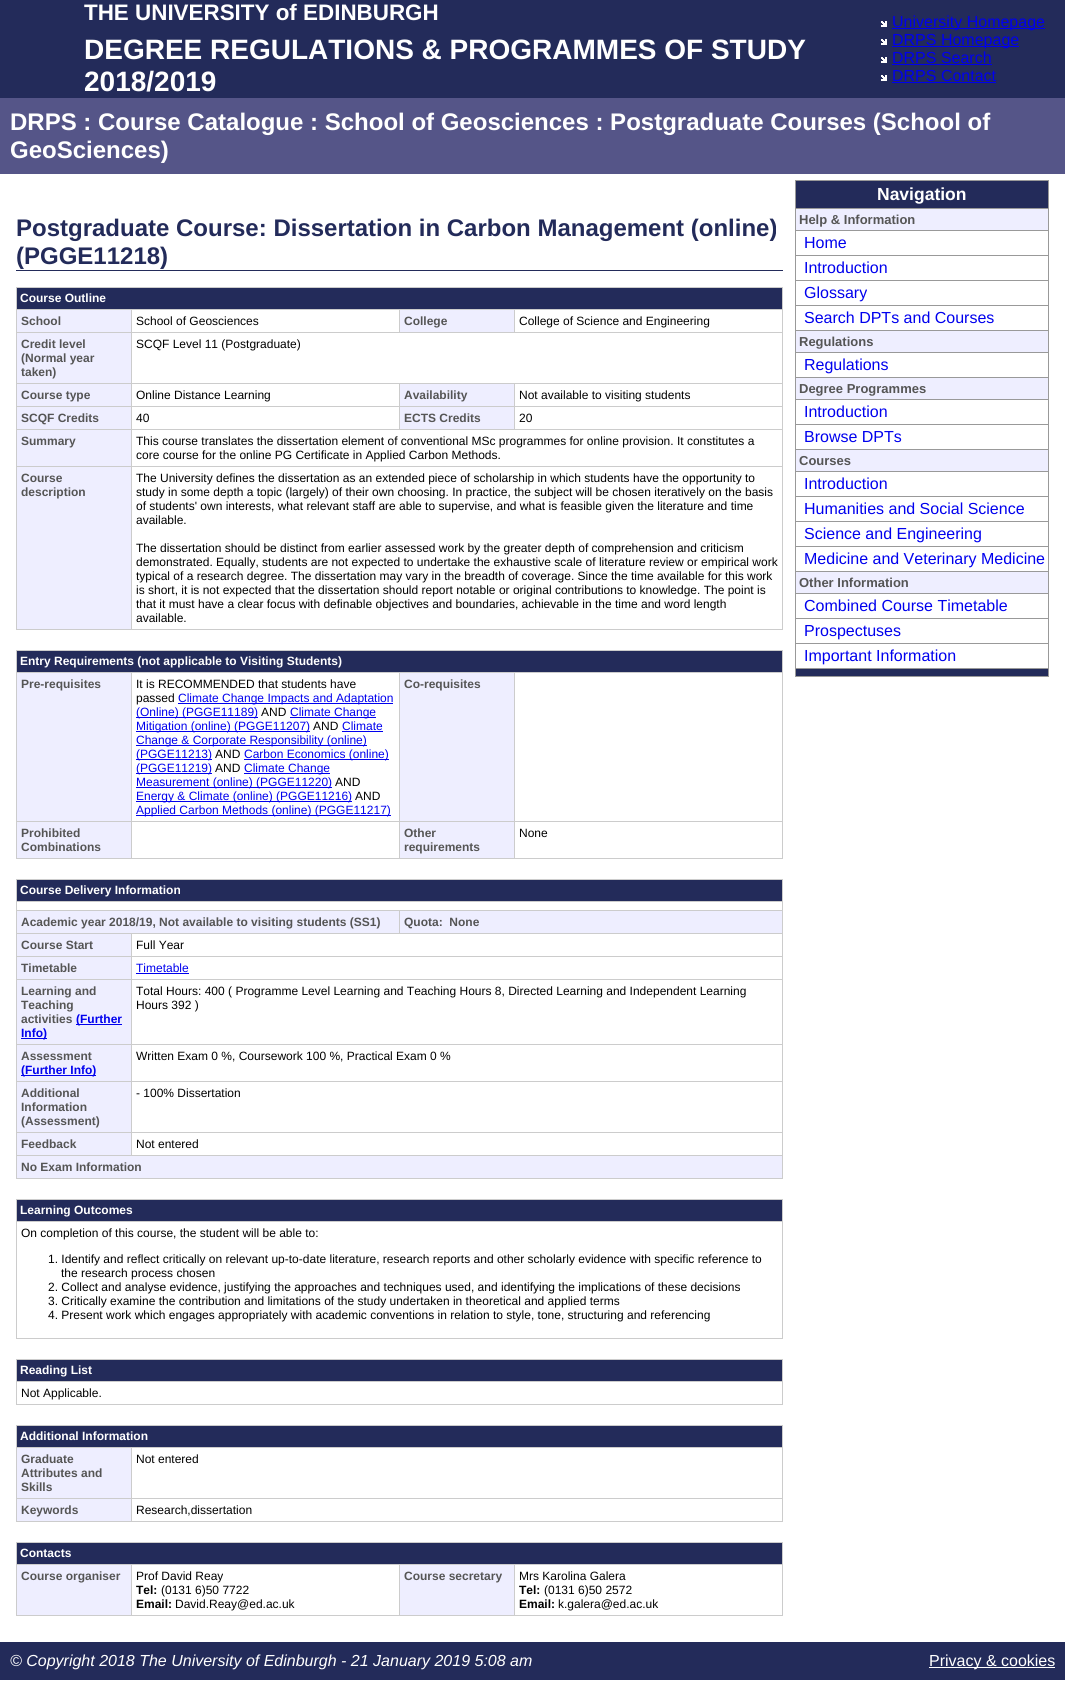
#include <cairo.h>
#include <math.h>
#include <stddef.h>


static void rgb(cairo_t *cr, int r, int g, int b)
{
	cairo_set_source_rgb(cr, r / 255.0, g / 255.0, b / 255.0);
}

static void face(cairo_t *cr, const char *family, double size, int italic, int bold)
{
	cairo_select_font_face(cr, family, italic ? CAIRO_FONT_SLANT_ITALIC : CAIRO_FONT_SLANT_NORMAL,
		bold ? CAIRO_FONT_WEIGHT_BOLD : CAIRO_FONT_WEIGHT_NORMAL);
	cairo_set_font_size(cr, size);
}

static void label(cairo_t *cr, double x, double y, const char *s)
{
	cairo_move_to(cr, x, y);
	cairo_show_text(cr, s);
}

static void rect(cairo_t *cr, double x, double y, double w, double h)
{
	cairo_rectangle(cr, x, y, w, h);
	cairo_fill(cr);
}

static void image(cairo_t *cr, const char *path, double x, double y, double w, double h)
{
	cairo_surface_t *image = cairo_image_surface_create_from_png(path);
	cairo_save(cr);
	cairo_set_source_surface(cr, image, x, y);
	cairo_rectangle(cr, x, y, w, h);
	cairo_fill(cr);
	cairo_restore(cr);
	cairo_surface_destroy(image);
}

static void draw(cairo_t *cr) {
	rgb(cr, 255, 255, 255);
	cairo_paint(cr);
	rgb(cr, 35, 43, 90);
	rect(cr, 0, 0, 1065, 98);
	face(cr, "Liberation Sans", 22.4, 0, 1);
	rgb(cr, 255, 255, 255);
	label(cr, 84, 20, "THE UNIVERSITY of EDINBURGH");
	face(cr, "Liberation Sans", 28, 0, 1);
	label(cr, 84, 59, "DEGREE REGULATIONS & PROGRAMMES OF STUDY");
	label(cr, 84, 91, "2018/2019");
	image(cr, "image0.png", 881, 21, 6, 6);
	rgb(cr, 0, 0, 238);
	rect(cr, 892, 28, 153, 1);
	face(cr, "Liberation Sans", 16, 0, 0);
	label(cr, 892, 27, "University Homepage");
	image(cr, "image0.png", 881, 39, 6, 6);
	rect(cr, 892, 46, 127, 1);
	label(cr, 892, 45, "DRPS Homepage");
	image(cr, "image0.png", 881, 57, 6, 6);
	label(cr, 892, 63, "DRPS Search");
	rect(cr, 892, 64, 100, 1);
	image(cr, "image0.png", 881, 75, 6, 6);
	label(cr, 892, 81, "DRPS Contact");
	rect(cr, 892, 82, 104, 1);
	rgb(cr, 85, 85, 136);
	rect(cr, 0, 98, 1065, 76);
	face(cr, "Liberation Sans", 24, 0, 1);
	rgb(cr, 255, 255, 255);
	label(cr, 10, 130, "DRPS : Course Catalogue : School of Geosciences : Postgraduate Courses (School of");
	label(cr, 10, 158, "GeoSciences)");
	rgb(cr, 35, 43, 90);
	rect(cr, 16, 270, 767, 1);
	label(cr, 16, 236, "Postgraduate Course: Dissertation in Carbon Management (online)");
	label(cr, 16, 264, "(PGGE11218)");
	rgb(cr, 204, 204, 204);
	rect(cr, 16, 287, 767, 1);
	rect(cr, 782, 287, 1, 343);
	rect(cr, 16, 629, 767, 1);
	rect(cr, 16, 287, 1, 343);
	rgb(cr, 35, 43, 90);
	rect(cr, 17, 288, 765, 21);
	face(cr, "Liberation Sans", 12, 0, 1);
	rgb(cr, 255, 255, 255);
	label(cr, 20, 302, "Course Outline");
	rgb(cr, 238, 238, 255);
	rect(cr, 17, 310, 114, 22);
	rgb(cr, 204, 204, 204);
	rect(cr, 514, 309, 269, 1);
	rect(cr, 131, 332, 652, 1);
	rect(cr, 514, 309, 1, 24);
	rect(cr, 399, 309, 116, 1);
	rect(cr, 399, 309, 1, 24);
	rect(cr, 131, 309, 269, 1);
	rect(cr, 514, 383, 269, 1);
	rect(cr, 514, 406, 269, 1);
	rect(cr, 131, 429, 652, 1);
	rect(cr, 514, 406, 1, 24);
	rect(cr, 399, 406, 116, 1);
	rect(cr, 514, 383, 1, 24);
	rect(cr, 399, 383, 116, 1);
	rect(cr, 399, 406, 1, 24);
	rect(cr, 131, 406, 269, 1);
	rect(cr, 399, 383, 1, 24);
	rect(cr, 131, 383, 269, 1);
	rect(cr, 131, 466, 652, 1);
	rect(cr, 131, 466, 1, 164);
	rect(cr, 16, 466, 116, 1);
	rect(cr, 131, 429, 1, 38);
	rect(cr, 16, 429, 116, 1);
	rect(cr, 131, 406, 1, 24);
	rect(cr, 16, 406, 116, 1);
	rect(cr, 131, 383, 1, 24);
	rect(cr, 16, 383, 116, 1);
	rect(cr, 131, 332, 1, 52);
	rect(cr, 16, 332, 116, 1);
	rect(cr, 131, 309, 1, 24);
	rect(cr, 16, 309, 116, 1);
	rgb(cr, 85, 85, 85);
	label(cr, 21, 325, "School");
	face(cr, "Liberation Sans", 12, 0, 0);
	rgb(cr, 0, 0, 0);
	label(cr, 136, 325, "School of Geosciences");
	rgb(cr, 238, 238, 255);
	rect(cr, 400, 310, 114, 22);
	face(cr, "Liberation Sans", 12, 0, 1);
	rgb(cr, 85, 85, 85);
	label(cr, 404, 325, "College");
	face(cr, "Liberation Sans", 12, 0, 0);
	rgb(cr, 0, 0, 0);
	label(cr, 519, 325, "College of Science and Engineering");
	rgb(cr, 238, 238, 255);
	rect(cr, 17, 333, 114, 50);
	face(cr, "Liberation Sans", 12, 0, 1);
	rgb(cr, 85, 85, 85);
	label(cr, 21, 348, "Credit level");
	label(cr, 21, 362, "(Normal year");
	label(cr, 21, 376, "taken)");
	face(cr, "Liberation Sans", 12, 0, 0);
	rgb(cr, 0, 0, 0);
	label(cr, 136, 348, "SCQF Level 11 (Postgraduate)");
	rgb(cr, 238, 238, 255);
	rect(cr, 17, 384, 114, 22);
	face(cr, "Liberation Sans", 12, 0, 1);
	rgb(cr, 85, 85, 85);
	label(cr, 21, 399, "Course type");
	face(cr, "Liberation Sans", 12, 0, 0);
	rgb(cr, 0, 0, 0);
	label(cr, 136, 399, "Online Distance Learning");
	rgb(cr, 238, 238, 255);
	rect(cr, 400, 384, 114, 22);
	face(cr, "Liberation Sans", 12, 0, 1);
	rgb(cr, 85, 85, 85);
	label(cr, 404, 399, "Availability");
	face(cr, "Liberation Sans", 12, 0, 0);
	rgb(cr, 0, 0, 0);
	label(cr, 519, 399, "Not available to visiting students");
	rgb(cr, 238, 238, 255);
	rect(cr, 17, 407, 114, 22);
	face(cr, "Liberation Sans", 12, 0, 1);
	rgb(cr, 85, 85, 85);
	label(cr, 21, 422, "SCQF Credits");
	face(cr, "Liberation Sans", 12, 0, 0);
	rgb(cr, 0, 0, 0);
	label(cr, 136, 422, "40");
	rgb(cr, 238, 238, 255);
	rect(cr, 400, 407, 114, 22);
	face(cr, "Liberation Sans", 12, 0, 1);
	rgb(cr, 85, 85, 85);
	label(cr, 404, 422, "ECTS Credits");
	face(cr, "Liberation Sans", 12, 0, 0);
	rgb(cr, 0, 0, 0);
	label(cr, 519, 422, "20");
	rgb(cr, 238, 238, 255);
	rect(cr, 17, 430, 114, 36);
	face(cr, "Liberation Sans", 12, 0, 1);
	rgb(cr, 85, 85, 85);
	label(cr, 21, 445, "Summary");
	face(cr, "Liberation Sans", 12, 0, 0);
	rgb(cr, 0, 0, 0);
	label(cr, 136, 445, "This course translates the dissertation element of conventional MSc programmes for online provision. It constitutes a");
	label(cr, 136, 459, "core course for the online PG Certificate in Applied Carbon Methods.");
	rgb(cr, 238, 238, 255);
	rect(cr, 17, 467, 114, 162);
	face(cr, "Liberation Sans", 12, 0, 1);
	rgb(cr, 85, 85, 85);
	label(cr, 21, 482, "Course");
	label(cr, 21, 496, "description");
	face(cr, "Liberation Sans", 12, 0, 0);
	rgb(cr, 0, 0, 0);
	label(cr, 136, 482, "The University defines the dissertation as an extended piece of scholarship in which students have the opportunity to");
	label(cr, 136, 496, "study in some depth a topic (largely) of their own choosing. In practice, the subject will be chosen iteratively on the basis");
	label(cr, 136, 510, "of students' own interests, what relevant staff are able to supervise, and what is feasible given the literature and time");
	label(cr, 136, 524, "available.");
	label(cr, 136, 552, "The dissertation should be distinct from earlier assessed work by the greater depth of comprehension and criticism");
	label(cr, 136, 566, "demonstrated. Equally, students are not expected to undertake the exhaustive scale of literature review or empirical work");
	label(cr, 136, 580, "typical of a research degree. The dissertation may vary in the breadth of coverage. Since the time available for this work");
	label(cr, 136, 594, "is short, it is not expected that the dissertation should report notable or original contributions to knowledge. The point is");
	label(cr, 136, 608, "that it must have a clear focus with definable objectives and boundaries, achievable in the time and word length");
	label(cr, 136, 622, "available.");
	rgb(cr, 204, 204, 204);
	rect(cr, 16, 650, 767, 1);
	rect(cr, 782, 650, 1, 209);
	rect(cr, 16, 858, 767, 1);
	rect(cr, 16, 650, 1, 209);
	rgb(cr, 35, 43, 90);
	rect(cr, 17, 651, 765, 21);
	face(cr, "Liberation Sans", 12, 0, 1);
	rgb(cr, 255, 255, 255);
	label(cr, 20, 665, "Entry Requirements (not applicable to Visiting Students)");
	rgb(cr, 238, 238, 255);
	rect(cr, 17, 673, 114, 148);
	rgb(cr, 204, 204, 204);
	rect(cr, 514, 672, 269, 1);
	rect(cr, 514, 821, 269, 1);
	rect(cr, 514, 821, 1, 38);
	rect(cr, 399, 821, 116, 1);
	rect(cr, 514, 672, 1, 150);
	rect(cr, 399, 672, 116, 1);
	rect(cr, 399, 821, 1, 38);
	rect(cr, 131, 821, 269, 1);
	rect(cr, 399, 672, 1, 150);
	rect(cr, 131, 672, 269, 1);
	rect(cr, 131, 821, 1, 38);
	rect(cr, 16, 821, 116, 1);
	rect(cr, 131, 672, 1, 150);
	rect(cr, 16, 672, 116, 1);
	rgb(cr, 85, 85, 85);
	label(cr, 21, 688, "Pre-requisites");
	face(cr, "Liberation Sans", 12, 0, 0);
	rgb(cr, 0, 0, 0);
	label(cr, 136, 688, "It is RECOMMENDED that students have");
	label(cr, 136, 702, "passed");
	rgb(cr, 0, 0, 238);
	rect(cr, 178, 703, 215, 1);
	label(cr, 178, 702, "Climate Change Impacts and Adaptation");
	rect(cr, 136, 717, 122, 1);
	label(cr, 136, 716, "(Online) (PGGE11189)");
	rgb(cr, 0, 0, 0);
	label(cr, 261, 716, "AND");
	rgb(cr, 0, 0, 238);
	rect(cr, 290, 717, 86, 1);
	label(cr, 290, 716, "Climate Change");
	rect(cr, 136, 731, 174, 1);
	label(cr, 136, 730, "Mitigation (online) (PGGE11207)");
	rgb(cr, 0, 0, 0);
	label(cr, 313, 730, "AND");
	rgb(cr, 0, 0, 238);
	label(cr, 342, 730, "Climate");
	rect(cr, 342, 731, 41, 1);
	rect(cr, 136, 745, 231, 1);
	label(cr, 136, 744, "Change & Corporate Responsibility (online)");
	rect(cr, 136, 759, 76, 1);
	label(cr, 136, 758, "(PGGE11213)");
	rgb(cr, 0, 0, 0);
	label(cr, 215, 758, "AND");
	rgb(cr, 0, 0, 238);
	rect(cr, 244, 759, 145, 1);
	label(cr, 244, 758, "Carbon Economics (online)");
	rect(cr, 136, 773, 76, 1);
	label(cr, 136, 772, "(PGGE11219)");
	rgb(cr, 0, 0, 0);
	label(cr, 215, 772, "AND");
	rgb(cr, 0, 0, 238);
	rect(cr, 244, 773, 86, 1);
	label(cr, 244, 772, "Climate Change");
	rect(cr, 136, 787, 196, 1);
	label(cr, 136, 786, "Measurement (online) (PGGE11220)");
	rgb(cr, 0, 0, 0);
	label(cr, 335, 786, "AND");
	rgb(cr, 0, 0, 238);
	rect(cr, 136, 801, 216, 1);
	label(cr, 136, 800, "Energy & Climate (online) (PGGE11216)");
	rgb(cr, 0, 0, 0);
	label(cr, 355, 800, "AND");
	rgb(cr, 0, 0, 238);
	rect(cr, 136, 815, 255, 1);
	label(cr, 136, 814, "Applied Carbon Methods (online) (PGGE11217)");
	rgb(cr, 238, 238, 255);
	rect(cr, 400, 673, 114, 148);
	face(cr, "Liberation Sans", 12, 0, 1);
	rgb(cr, 85, 85, 85);
	label(cr, 404, 688, "Co-requisites");
	rgb(cr, 238, 238, 255);
	rect(cr, 17, 822, 114, 36);
	rgb(cr, 85, 85, 85);
	label(cr, 21, 837, "Prohibited");
	label(cr, 21, 851, "Combinations");
	rgb(cr, 238, 238, 255);
	rect(cr, 400, 822, 114, 36);
	rgb(cr, 85, 85, 85);
	label(cr, 404, 837, "Other");
	label(cr, 404, 851, "requirements");
	face(cr, "Liberation Sans", 12, 0, 0);
	rgb(cr, 0, 0, 0);
	label(cr, 519, 837, "None");
	rgb(cr, 204, 204, 204);
	rect(cr, 16, 879, 767, 1);
	rect(cr, 782, 879, 1, 300);
	rect(cr, 16, 1178, 767, 1);
	rect(cr, 16, 879, 1, 300);
	rgb(cr, 35, 43, 90);
	rect(cr, 17, 880, 765, 21);
	face(cr, "Liberation Sans", 12, 0, 1);
	rgb(cr, 255, 255, 255);
	label(cr, 20, 894, "Course Delivery Information");
	rgb(cr, 204, 204, 204);
	rect(cr, 16, 901, 767, 1);
	rgb(cr, 238, 238, 255);
	rect(cr, 17, 911, 382, 22);
	rgb(cr, 204, 204, 204);
	rect(cr, 399, 910, 384, 1);
	rect(cr, 131, 933, 652, 1);
	rect(cr, 399, 910, 1, 24);
	rect(cr, 16, 910, 384, 1);
	rgb(cr, 85, 85, 85);
	label(cr, 21, 926, "Academic year 2018/19, Not available to visiting students (SS1)");
	rgb(cr, 238, 238, 255);
	rect(cr, 400, 911, 382, 22);
	rgb(cr, 85, 85, 85);
	label(cr, 404, 926, "Quota:  None");
	rgb(cr, 238, 238, 255);
	rect(cr, 17, 934, 114, 22);
	rgb(cr, 204, 204, 204);
	rect(cr, 131, 956, 652, 1);
	rect(cr, 131, 979, 652, 1);
	rect(cr, 131, 1044, 652, 1);
	rect(cr, 131, 1081, 652, 1);
	rect(cr, 131, 1132, 652, 1);
	rect(cr, 16, 1155, 767, 1);
	rect(cr, 131, 1132, 1, 24);
	rect(cr, 16, 1132, 116, 1);
	rect(cr, 131, 1081, 1, 52);
	rect(cr, 16, 1081, 116, 1);
	rect(cr, 131, 1044, 1, 38);
	rect(cr, 16, 1044, 116, 1);
	rect(cr, 131, 979, 1, 66);
	rect(cr, 16, 979, 116, 1);
	rect(cr, 131, 956, 1, 24);
	rect(cr, 16, 956, 116, 1);
	rect(cr, 131, 933, 1, 24);
	rect(cr, 16, 933, 116, 1);
	rgb(cr, 85, 85, 85);
	label(cr, 21, 949, "Course Start");
	face(cr, "Liberation Sans", 12, 0, 0);
	rgb(cr, 0, 0, 0);
	label(cr, 136, 949, "Full Year");
	rgb(cr, 238, 238, 255);
	rect(cr, 17, 957, 114, 22);
	face(cr, "Liberation Sans", 12, 0, 1);
	rgb(cr, 85, 85, 85);
	label(cr, 21, 972, "Timetable");
	face(cr, "Liberation Sans", 12, 0, 0);
	rgb(cr, 0, 0, 238);
	label(cr, 136, 972, "Timetable");
	rect(cr, 136, 973, 53, 1);
	rgb(cr, 238, 238, 255);
	rect(cr, 17, 980, 114, 64);
	face(cr, "Liberation Sans", 12, 0, 1);
	rgb(cr, 85, 85, 85);
	label(cr, 21, 995, "Learning and");
	label(cr, 21, 1009, "Teaching");
	label(cr, 21, 1023, "activities");
	rgb(cr, 0, 0, 238);
	rect(cr, 76, 1024, 46, 1);
	label(cr, 76, 1023, "(Further");
	rect(cr, 21, 1038, 26, 1);
	label(cr, 21, 1037, "Info)");
	face(cr, "Liberation Sans", 12, 0, 0);
	rgb(cr, 0, 0, 0);
	label(cr, 136, 995, "Total Hours: 400 ( Programme Level Learning and Teaching Hours 8, Directed Learning and Independent Learning");
	label(cr, 136, 1009, "Hours 392 )");
	rgb(cr, 238, 238, 255);
	rect(cr, 17, 1045, 114, 36);
	face(cr, "Liberation Sans", 12, 0, 1);
	rgb(cr, 85, 85, 85);
	label(cr, 21, 1060, "Assessment");
	rgb(cr, 0, 0, 238);
	rect(cr, 21, 1075, 75, 1);
	label(cr, 21, 1074, "(Further Info)");
	face(cr, "Liberation Sans", 12, 0, 0);
	rgb(cr, 0, 0, 0);
	label(cr, 136, 1060, "Written Exam 0 %, Coursework 100 %, Practical Exam 0 %");
	rgb(cr, 238, 238, 255);
	rect(cr, 17, 1082, 114, 50);
	face(cr, "Liberation Sans", 12, 0, 1);
	rgb(cr, 85, 85, 85);
	label(cr, 21, 1097, "Additional");
	label(cr, 21, 1111, "Information");
	label(cr, 21, 1125, "(Assessment)");
	face(cr, "Liberation Sans", 12, 0, 0);
	rgb(cr, 0, 0, 0);
	label(cr, 136, 1097, "- 100% Dissertation");
	rgb(cr, 238, 238, 255);
	rect(cr, 17, 1133, 114, 22);
	face(cr, "Liberation Sans", 12, 0, 1);
	rgb(cr, 85, 85, 85);
	label(cr, 21, 1148, "Feedback");
	face(cr, "Liberation Sans", 12, 0, 0);
	rgb(cr, 0, 0, 0);
	label(cr, 136, 1148, "Not entered");
	rgb(cr, 238, 238, 255);
	rect(cr, 17, 1156, 765, 22);
	face(cr, "Liberation Sans", 12, 0, 1);
	rgb(cr, 85, 85, 85);
	label(cr, 21, 1171, "No Exam Information");
	rgb(cr, 204, 204, 204);
	rect(cr, 16, 1199, 767, 1);
	rect(cr, 782, 1199, 1, 140);
	rect(cr, 16, 1338, 767, 1);
	rect(cr, 16, 1199, 1, 140);
	rgb(cr, 35, 43, 90);
	rect(cr, 17, 1200, 765, 21);
	rgb(cr, 255, 255, 255);
	label(cr, 20, 1214, "Learning Outcomes");
	rgb(cr, 204, 204, 204);
	rect(cr, 16, 1221, 767, 1);
	face(cr, "Liberation Sans", 12, 0, 0);
	rgb(cr, 0, 0, 0);
	label(cr, 21, 1237, "On completion of this course, the student will be able to:");
	label(cr, 48, 1263, "1. Identify and reflect critically on relevant up-to-date literature, research reports and other scholarly evidence with specific reference to");
	label(cr, 61, 1277, "the research process chosen");
	label(cr, 48, 1291, "2. Collect and analyse evidence, justifying the approaches and techniques used, and identifying the implications of these decisions");
	label(cr, 48, 1305, "3. Critically examine the contribution and limitations of the study undertaken in theoretical and applied terms");
	label(cr, 48, 1319, "4. Present work which engages appropriately with academic conventions in relation to style, tone, structuring and referencing");
	rgb(cr, 204, 204, 204);
	rect(cr, 16, 1359, 767, 1);
	rect(cr, 782, 1359, 1, 46);
	rect(cr, 16, 1404, 767, 1);
	rect(cr, 16, 1359, 1, 46);
	rgb(cr, 35, 43, 90);
	rect(cr, 17, 1360, 765, 21);
	face(cr, "Liberation Sans", 12, 0, 1);
	rgb(cr, 255, 255, 255);
	label(cr, 20, 1374, "Reading List");
	rgb(cr, 204, 204, 204);
	rect(cr, 16, 1381, 767, 1);
	face(cr, "Liberation Sans", 12, 0, 0);
	rgb(cr, 0, 0, 0);
	label(cr, 21, 1397, "Not Applicable.");
	rgb(cr, 204, 204, 204);
	rect(cr, 16, 1425, 767, 1);
	rect(cr, 782, 1425, 1, 97);
	rect(cr, 16, 1521, 767, 1);
	rect(cr, 16, 1425, 1, 97);
	rgb(cr, 35, 43, 90);
	rect(cr, 17, 1426, 765, 21);
	face(cr, "Liberation Sans", 12, 0, 1);
	rgb(cr, 255, 255, 255);
	label(cr, 20, 1440, "Additional Information");
	rgb(cr, 238, 238, 255);
	rect(cr, 17, 1448, 114, 50);
	rgb(cr, 204, 204, 204);
	rect(cr, 131, 1447, 652, 1);
	rect(cr, 131, 1498, 652, 1);
	rect(cr, 131, 1498, 1, 24);
	rect(cr, 16, 1498, 116, 1);
	rect(cr, 131, 1447, 1, 52);
	rect(cr, 16, 1447, 116, 1);
	rgb(cr, 85, 85, 85);
	label(cr, 21, 1463, "Graduate");
	label(cr, 21, 1477, "Attributes and");
	label(cr, 21, 1491, "Skills");
	face(cr, "Liberation Sans", 12, 0, 0);
	rgb(cr, 0, 0, 0);
	label(cr, 136, 1463, "Not entered");
	rgb(cr, 238, 238, 255);
	rect(cr, 17, 1499, 114, 22);
	face(cr, "Liberation Sans", 12, 0, 1);
	rgb(cr, 85, 85, 85);
	label(cr, 21, 1514, "Keywords");
	face(cr, "Liberation Sans", 12, 0, 0);
	rgb(cr, 0, 0, 0);
	label(cr, 136, 1514, "Research,dissertation");
	rgb(cr, 204, 204, 204);
	rect(cr, 16, 1542, 767, 1);
	rect(cr, 782, 1542, 1, 74);
	rect(cr, 16, 1615, 767, 1);
	rect(cr, 16, 1542, 1, 74);
	rgb(cr, 35, 43, 90);
	rect(cr, 17, 1543, 765, 21);
	face(cr, "Liberation Sans", 12, 0, 1);
	rgb(cr, 255, 255, 255);
	label(cr, 20, 1557, "Contacts");
	rgb(cr, 238, 238, 255);
	rect(cr, 17, 1565, 114, 50);
	rgb(cr, 204, 204, 204);
	rect(cr, 514, 1564, 269, 1);
	rect(cr, 514, 1564, 1, 52);
	rect(cr, 399, 1564, 116, 1);
	rect(cr, 399, 1564, 1, 52);
	rect(cr, 131, 1564, 269, 1);
	rect(cr, 131, 1564, 1, 52);
	rect(cr, 16, 1564, 116, 1);
	rgb(cr, 85, 85, 85);
	label(cr, 21, 1580, "Course organiser");
	face(cr, "Liberation Sans", 12, 0, 0);
	rgb(cr, 0, 0, 0);
	label(cr, 136, 1580, "Prof David Reay");
	face(cr, "Liberation Sans", 12, 0, 1);
	label(cr, 136, 1594, "Tel:");
	face(cr, "Liberation Sans", 12, 0, 0);
	label(cr, 161, 1594, "(0131 6)50 7722");
	face(cr, "Liberation Sans", 12, 0, 1);
	label(cr, 136, 1608, "Email:");
	face(cr, "Liberation Sans", 12, 0, 0);
	label(cr, 175, 1608, "David.Reay@ed.ac.uk");
	rgb(cr, 238, 238, 255);
	rect(cr, 400, 1565, 114, 50);
	face(cr, "Liberation Sans", 12, 0, 1);
	rgb(cr, 85, 85, 85);
	label(cr, 404, 1580, "Course secretary");
	face(cr, "Liberation Sans", 12, 0, 0);
	rgb(cr, 0, 0, 0);
	label(cr, 519, 1580, "Mrs Karolina Galera");
	face(cr, "Liberation Sans", 12, 0, 1);
	label(cr, 519, 1594, "Tel:");
	face(cr, "Liberation Sans", 12, 0, 0);
	label(cr, 544, 1594, "(0131 6)50 2572");
	face(cr, "Liberation Sans", 12, 0, 1);
	label(cr, 519, 1608, "Email:");
	face(cr, "Liberation Sans", 12, 0, 0);
	label(cr, 558, 1608, "k.galera@ed.ac.uk");
	rgb(cr, 153, 153, 153);
	rect(cr, 795, 180, 254, 497);
	rgb(cr, 35, 43, 90);
	rect(cr, 796, 181, 252, 27);
	face(cr, "Liberation Sans", 17.5, 0, 1);
	rgb(cr, 255, 255, 255);
	label(cr, 877, 200, "Navigation");
	rgb(cr, 238, 238, 255);
	rect(cr, 796, 209, 252, 21);
	face(cr, "Liberation Sans", 13, 0, 1);
	rgb(cr, 85, 85, 85);
	label(cr, 799, 224, "Help & Information");
	rgb(cr, 255, 255, 255);
	rect(cr, 796, 231, 252, 24);
	face(cr, "Liberation Sans", 16, 0, 0);
	rgb(cr, 0, 0, 238);
	label(cr, 804, 248, "Home");
	rgb(cr, 255, 255, 255);
	rect(cr, 796, 256, 252, 24);
	rgb(cr, 0, 0, 238);
	label(cr, 804, 273, "Introduction");
	rgb(cr, 255, 255, 255);
	rect(cr, 796, 281, 252, 24);
	rgb(cr, 0, 0, 238);
	label(cr, 804, 298, "Glossary");
	rgb(cr, 255, 255, 255);
	rect(cr, 796, 306, 252, 24);
	rgb(cr, 0, 0, 238);
	label(cr, 804, 323, "Search DPTs and Courses");
	rgb(cr, 238, 238, 255);
	rect(cr, 796, 331, 252, 21);
	face(cr, "Liberation Sans", 13, 0, 1);
	rgb(cr, 85, 85, 85);
	label(cr, 799, 346, "Regulations");
	rgb(cr, 255, 255, 255);
	rect(cr, 796, 353, 252, 24);
	face(cr, "Liberation Sans", 16, 0, 0);
	rgb(cr, 0, 0, 238);
	label(cr, 804, 370, "Regulations");
	rgb(cr, 238, 238, 255);
	rect(cr, 796, 378, 252, 21);
	face(cr, "Liberation Sans", 13, 0, 1);
	rgb(cr, 85, 85, 85);
	label(cr, 799, 393, "Degree Programmes");
	rgb(cr, 255, 255, 255);
	rect(cr, 796, 400, 252, 24);
	face(cr, "Liberation Sans", 16, 0, 0);
	rgb(cr, 0, 0, 238);
	label(cr, 804, 417, "Introduction");
	rgb(cr, 255, 255, 255);
	rect(cr, 796, 425, 252, 24);
	rgb(cr, 0, 0, 238);
	label(cr, 804, 442, "Browse DPTs");
	rgb(cr, 238, 238, 255);
	rect(cr, 796, 450, 252, 21);
	face(cr, "Liberation Sans", 13, 0, 1);
	rgb(cr, 85, 85, 85);
	label(cr, 799, 465, "Courses");
	rgb(cr, 255, 255, 255);
	rect(cr, 796, 472, 252, 24);
	face(cr, "Liberation Sans", 16, 0, 0);
	rgb(cr, 0, 0, 238);
	label(cr, 804, 489, "Introduction");
	rgb(cr, 255, 255, 255);
	rect(cr, 796, 497, 252, 24);
	rgb(cr, 0, 0, 238);
	label(cr, 804, 514, "Humanities and Social Science");
	rgb(cr, 255, 255, 255);
	rect(cr, 796, 522, 252, 24);
	rgb(cr, 0, 0, 238);
	label(cr, 804, 539, "Science and Engineering");
	rgb(cr, 255, 255, 255);
	rect(cr, 796, 547, 252, 24);
	rgb(cr, 0, 0, 238);
	label(cr, 804, 564, "Medicine and Veterinary Medicine");
	rgb(cr, 238, 238, 255);
	rect(cr, 796, 572, 252, 21);
	face(cr, "Liberation Sans", 13, 0, 1);
	rgb(cr, 85, 85, 85);
	label(cr, 799, 587, "Other Information");
	rgb(cr, 255, 255, 255);
	rect(cr, 796, 594, 252, 24);
	face(cr, "Liberation Sans", 16, 0, 0);
	rgb(cr, 0, 0, 238);
	label(cr, 804, 611, "Combined Course Timetable");
	rgb(cr, 255, 255, 255);
	rect(cr, 796, 619, 252, 24);
	rgb(cr, 0, 0, 238);
	label(cr, 804, 636, "Prospectuses");
	rgb(cr, 255, 255, 255);
	rect(cr, 796, 644, 252, 24);
	rgb(cr, 0, 0, 238);
	label(cr, 804, 661, "Important Information");
	rgb(cr, 35, 43, 90);
	rect(cr, 796, 669, 252, 7);
	rect(cr, 0, 1642, 1065, 38);
	face(cr, "Liberation Sans", 16, 1, 0);
	rgb(cr, 255, 255, 255);
	label(cr, 10, 1666, "© Copyright 2018 The University of Edinburgh - 21 January 2019 5:08 am");
	rect(cr, 929, 1667, 126, 1);
	face(cr, "Liberation Sans", 16, 0, 0);
	label(cr, 929, 1666, "Privacy & cookies");
}

int main(void) {
	cairo_surface_t *surface = cairo_image_surface_create(CAIRO_FORMAT_RGB24, 1065, 1696);
	cairo_t *cr = cairo_create(surface);
	cairo_font_options_t *options = cairo_font_options_create();
	cairo_font_options_set_hint_metrics(options, CAIRO_HINT_METRICS_OFF);
	cairo_font_options_set_hint_style(options, CAIRO_HINT_STYLE_NONE);
	cairo_set_font_options(cr, options);
	cairo_set_miter_limit(cr, 4);
	draw(cr);
	cairo_surface_write_to_png(surface, "render.png");
	cairo_font_options_destroy(options);
	cairo_destroy(cr);
	cairo_surface_destroy(surface);
	return 0;
}
